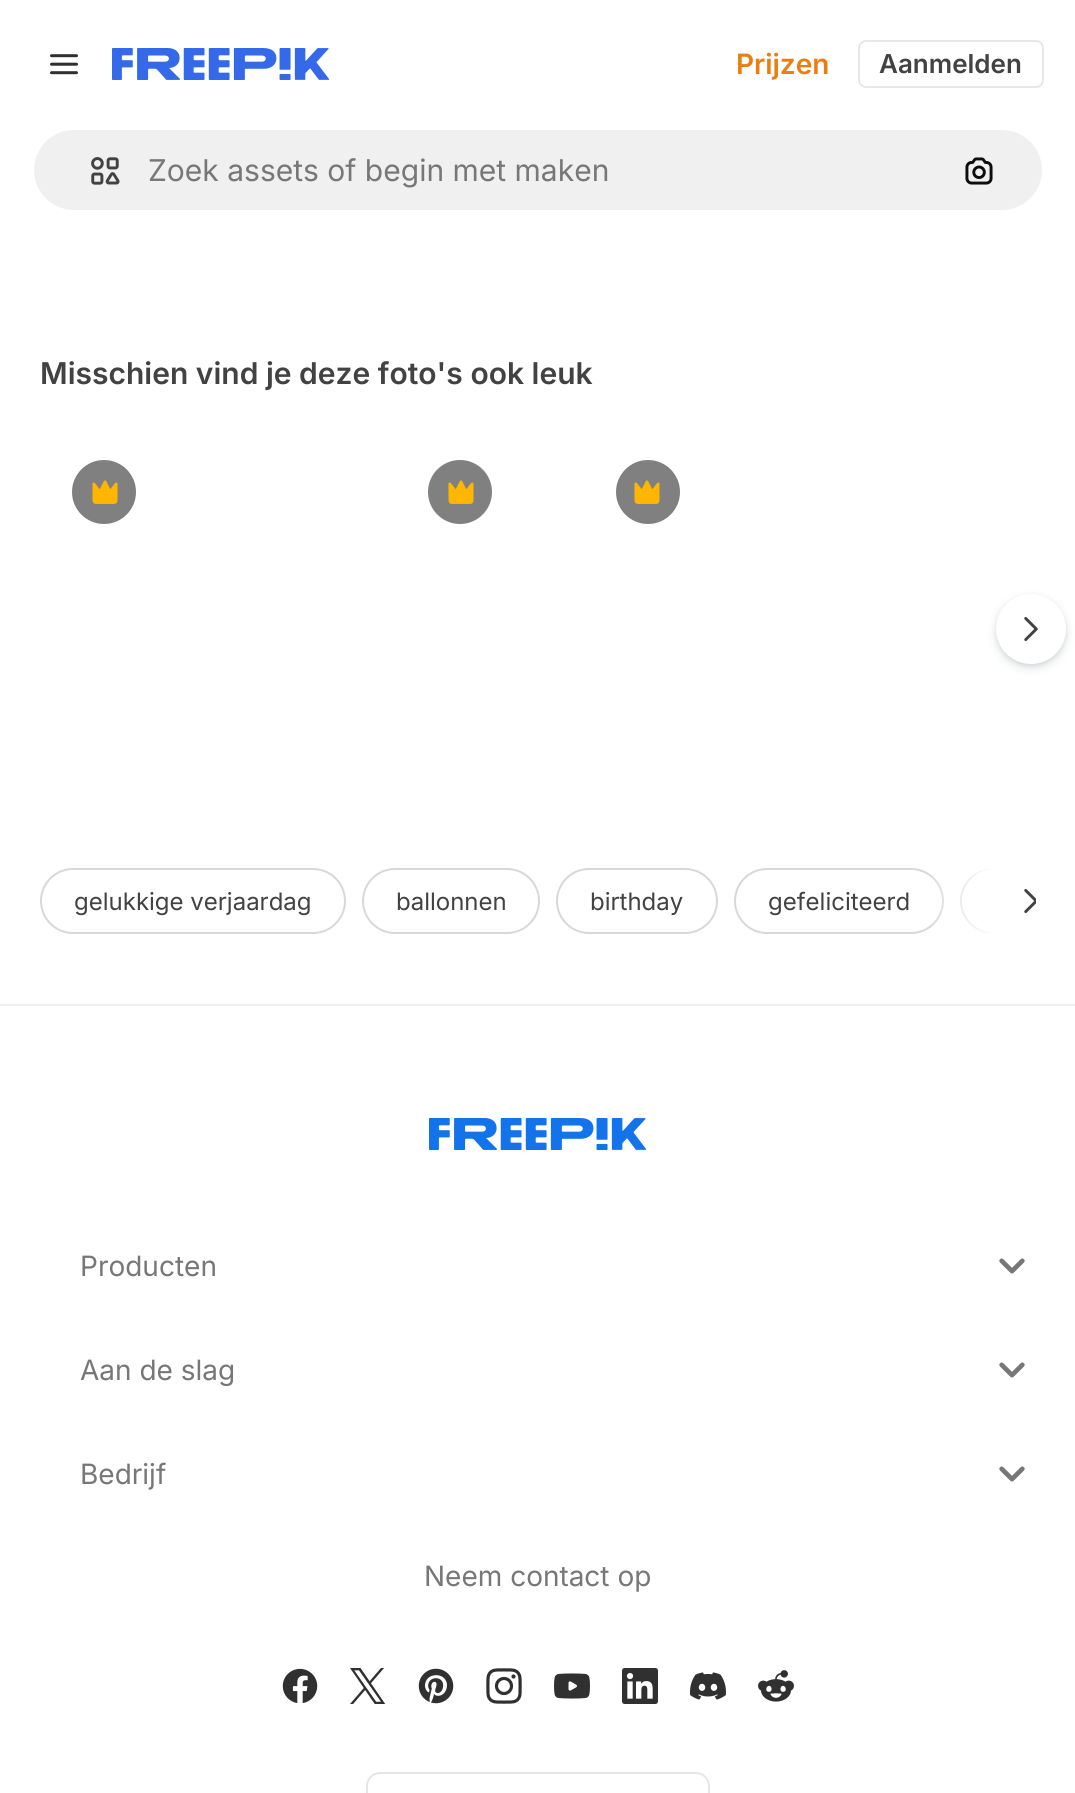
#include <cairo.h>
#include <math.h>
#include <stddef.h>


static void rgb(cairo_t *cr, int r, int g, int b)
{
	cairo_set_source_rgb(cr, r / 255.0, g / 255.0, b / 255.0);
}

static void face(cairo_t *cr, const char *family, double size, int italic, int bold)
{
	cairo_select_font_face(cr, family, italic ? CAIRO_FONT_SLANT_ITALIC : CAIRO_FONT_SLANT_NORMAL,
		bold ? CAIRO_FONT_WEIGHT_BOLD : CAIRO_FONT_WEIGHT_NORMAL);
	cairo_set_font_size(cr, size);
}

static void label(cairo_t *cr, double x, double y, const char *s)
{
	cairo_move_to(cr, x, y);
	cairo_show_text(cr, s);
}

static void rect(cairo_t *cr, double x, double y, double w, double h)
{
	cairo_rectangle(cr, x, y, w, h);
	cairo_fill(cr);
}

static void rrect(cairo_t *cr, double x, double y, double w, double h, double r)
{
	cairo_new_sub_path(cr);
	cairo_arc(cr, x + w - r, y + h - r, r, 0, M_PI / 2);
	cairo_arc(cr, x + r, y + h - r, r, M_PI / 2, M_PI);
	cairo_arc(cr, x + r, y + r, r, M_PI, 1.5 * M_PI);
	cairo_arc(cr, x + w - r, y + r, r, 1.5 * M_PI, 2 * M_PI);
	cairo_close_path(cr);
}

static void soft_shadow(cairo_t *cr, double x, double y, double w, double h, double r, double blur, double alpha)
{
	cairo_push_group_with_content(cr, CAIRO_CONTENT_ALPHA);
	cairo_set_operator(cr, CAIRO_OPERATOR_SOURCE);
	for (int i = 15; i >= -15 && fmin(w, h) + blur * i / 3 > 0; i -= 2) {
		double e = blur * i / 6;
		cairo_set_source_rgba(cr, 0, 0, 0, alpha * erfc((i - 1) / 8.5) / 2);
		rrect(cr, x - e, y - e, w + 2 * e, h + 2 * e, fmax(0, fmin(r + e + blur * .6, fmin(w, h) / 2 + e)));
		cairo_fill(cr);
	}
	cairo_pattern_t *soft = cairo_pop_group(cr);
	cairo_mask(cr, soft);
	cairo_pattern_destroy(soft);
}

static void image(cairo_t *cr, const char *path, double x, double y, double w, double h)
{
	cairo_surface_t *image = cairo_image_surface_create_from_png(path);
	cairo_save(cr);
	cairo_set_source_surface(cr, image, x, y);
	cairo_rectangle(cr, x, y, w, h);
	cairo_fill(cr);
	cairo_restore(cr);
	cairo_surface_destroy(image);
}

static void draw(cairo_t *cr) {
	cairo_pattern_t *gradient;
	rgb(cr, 255, 255, 255);
	cairo_paint(cr);
	image(cr, "image0.png", 50, 54, 28, 21);
	image(cr, "image1.png", 112, 48, 218, 32);
	face(cr, "Inter SemiBold", 28, 0, 0);
	rgb(cr, 234, 126, 17);
	label(cr, 736, 74, "Prijzen");
	rrect(cr, 859, 41, 184, 46, 7);
	rgb(cr, 231, 231, 231);
	cairo_stroke(cr);
	face(cr, "Inter SemiBold", 26, 0, 0);
	rgb(cr, 66, 66, 66);
	label(cr, 879, 73, "Aanmelden");
	rgb(cr, 240, 240, 240);
	rrect(cr, 33, 129, 1010, 82, 41);
	cairo_fill_preserve(cr);
	rgb(cr, 255, 255, 255);
	cairo_stroke(cr);
	image(cr, "image2.png", 91, 157, 29, 28);
	face(cr, "Inter", 30, 0, 0);
	rgb(cr, 119, 119, 119);
	label(cr, 148, 181, "Zoek assets of begin met maken");
	image(cr, "image3.png", 965, 157, 28, 28);
	face(cr, "Inter SemiBold", 30, 0, 0);
	rgb(cr, 66, 66, 66);
	label(cr, 40, 384, "Misschien vind je deze foto's ook leuk");
	rgb(cr, 128, 128, 128);
	cairo_new_path(cr);
	cairo_arc(cr, 104, 492, 32, 0, 2 * M_PI);
	cairo_fill(cr);
	image(cr, "image4.png", 92, 480, 26, 24);
	cairo_arc(cr, 460, 492, 32, 0, 2 * M_PI);
	cairo_fill(cr);
	image(cr, "image4.png", 448, 480, 26, 24);
	cairo_arc(cr, 648, 492, 32, 0, 2 * M_PI);
	cairo_fill(cr);
	image(cr, "image4.png", 634, 480, 26, 24);
	rgb(cr, 55, 73, 87);
	soft_shadow(cr, 996, 598, 70, 70, 35, 5, 0.15);
	soft_shadow(cr, 996, 596, 70, 70, 35, 2, 0.1);
	rgb(cr, 255, 255, 255);
	cairo_arc(cr, 1031, 629, 35, 0, 2 * M_PI);
	cairo_fill(cr);
	image(cr, "image5.png", 1024, 616, 14, 26);
	rrect(cr, 41, 869, 304, 64, 32);
	rgb(cr, 216, 216, 216);
	cairo_stroke(cr);
	face(cr, "Inter", 24, 0, 0);
	rgb(cr, 66, 66, 66);
	label(cr, 74, 910, "gelukkige verjaardag");
	rrect(cr, 363, 869, 176, 64, 32);
	rgb(cr, 216, 216, 216);
	cairo_stroke(cr);
	rgb(cr, 66, 66, 66);
	label(cr, 396, 910, "ballonnen");
	rrect(cr, 557, 869, 160, 64, 32);
	rgb(cr, 216, 216, 216);
	cairo_stroke(cr);
	rgb(cr, 66, 66, 66);
	label(cr, 590, 910, "birthday");
	rrect(cr, 735, 869, 208, 64, 32);
	rgb(cr, 216, 216, 216);
	cairo_stroke(cr);
	rgb(cr, 66, 66, 66);
	label(cr, 768, 910, "gefeliciteerd");
	cairo_save(cr);
	cairo_rectangle(cr, 40, 868, 996, 66);
	cairo_clip(cr);
	rrect(cr, 961, 869, 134, 64, 32);
	rgb(cr, 216, 216, 216);
	cairo_stroke(cr);
	cairo_restore(cr);
	rgb(cr, 255, 255, 255);
	rect(cr, 996, 868, 40, 66);
	gradient = cairo_pattern_create_linear(996, 901, 926, 901);
	cairo_pattern_add_color_stop_rgba(gradient, 0, 1, 1, 1, 1);
	cairo_pattern_add_color_stop_rgba(gradient, 1, 1, 1, 1, 0);
	cairo_set_source(cr, gradient);
	cairo_pattern_destroy(gradient);
	rect(cr, 931, 868, 65, 66);
	image(cr, "image6.png", 1024, 888, 12, 26);
	rgb(cr, 240, 240, 240);
	rect(cr, 0, 1004, 1075, 2);
	image(cr, "image7.png", 429, 1118, 218, 32);
	face(cr, "Inter", 28, 0, 0);
	rgb(cr, 119, 119, 119);
	label(cr, 80, 1276, "Producten");
	image(cr, "image8.png", 999, 1258, 26, 16);
	label(cr, 80, 1380, "Aan de slag");
	image(cr, "image8.png", 999, 1362, 26, 16);
	label(cr, 80, 1484, "Bedrijf");
	image(cr, "image8.png", 999, 1466, 26, 16);
	label(cr, 424, 1586, "Neem contact op");
	image(cr, "image9.png", 282, 1668, 36, 36);
	image(cr, "image10.png", 350, 1668, 36, 36);
	image(cr, "image11.png", 418, 1668, 36, 36);
	image(cr, "image12.png", 486, 1668, 36, 36);
	image(cr, "image13.png", 554, 1673, 36, 26);
	image(cr, "image14.png", 622, 1668, 36, 36);
	image(cr, "image15.png", 690, 1672, 36, 28);
	image(cr, "image16.png", 758, 1670, 36, 32);
	rrect(cr, 367, 1773, 342, 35, 13);
	rgb(cr, 230, 230, 230);
	cairo_stroke(cr);
}

int main(void) {
	cairo_surface_t *surface = cairo_image_surface_create(CAIRO_FORMAT_RGB24, 1075, 1793);
	cairo_t *cr = cairo_create(surface);
	cairo_font_options_t *options = cairo_font_options_create();
	cairo_font_options_set_hint_metrics(options, CAIRO_HINT_METRICS_OFF);
	cairo_font_options_set_hint_style(options, CAIRO_HINT_STYLE_NONE);
	cairo_set_font_options(cr, options);
	cairo_set_miter_limit(cr, 4);
	draw(cr);
	cairo_surface_write_to_png(surface, "render.png");
	cairo_font_options_destroy(options);
	cairo_destroy(cr);
	cairo_surface_destroy(surface);
	return 0;
}
